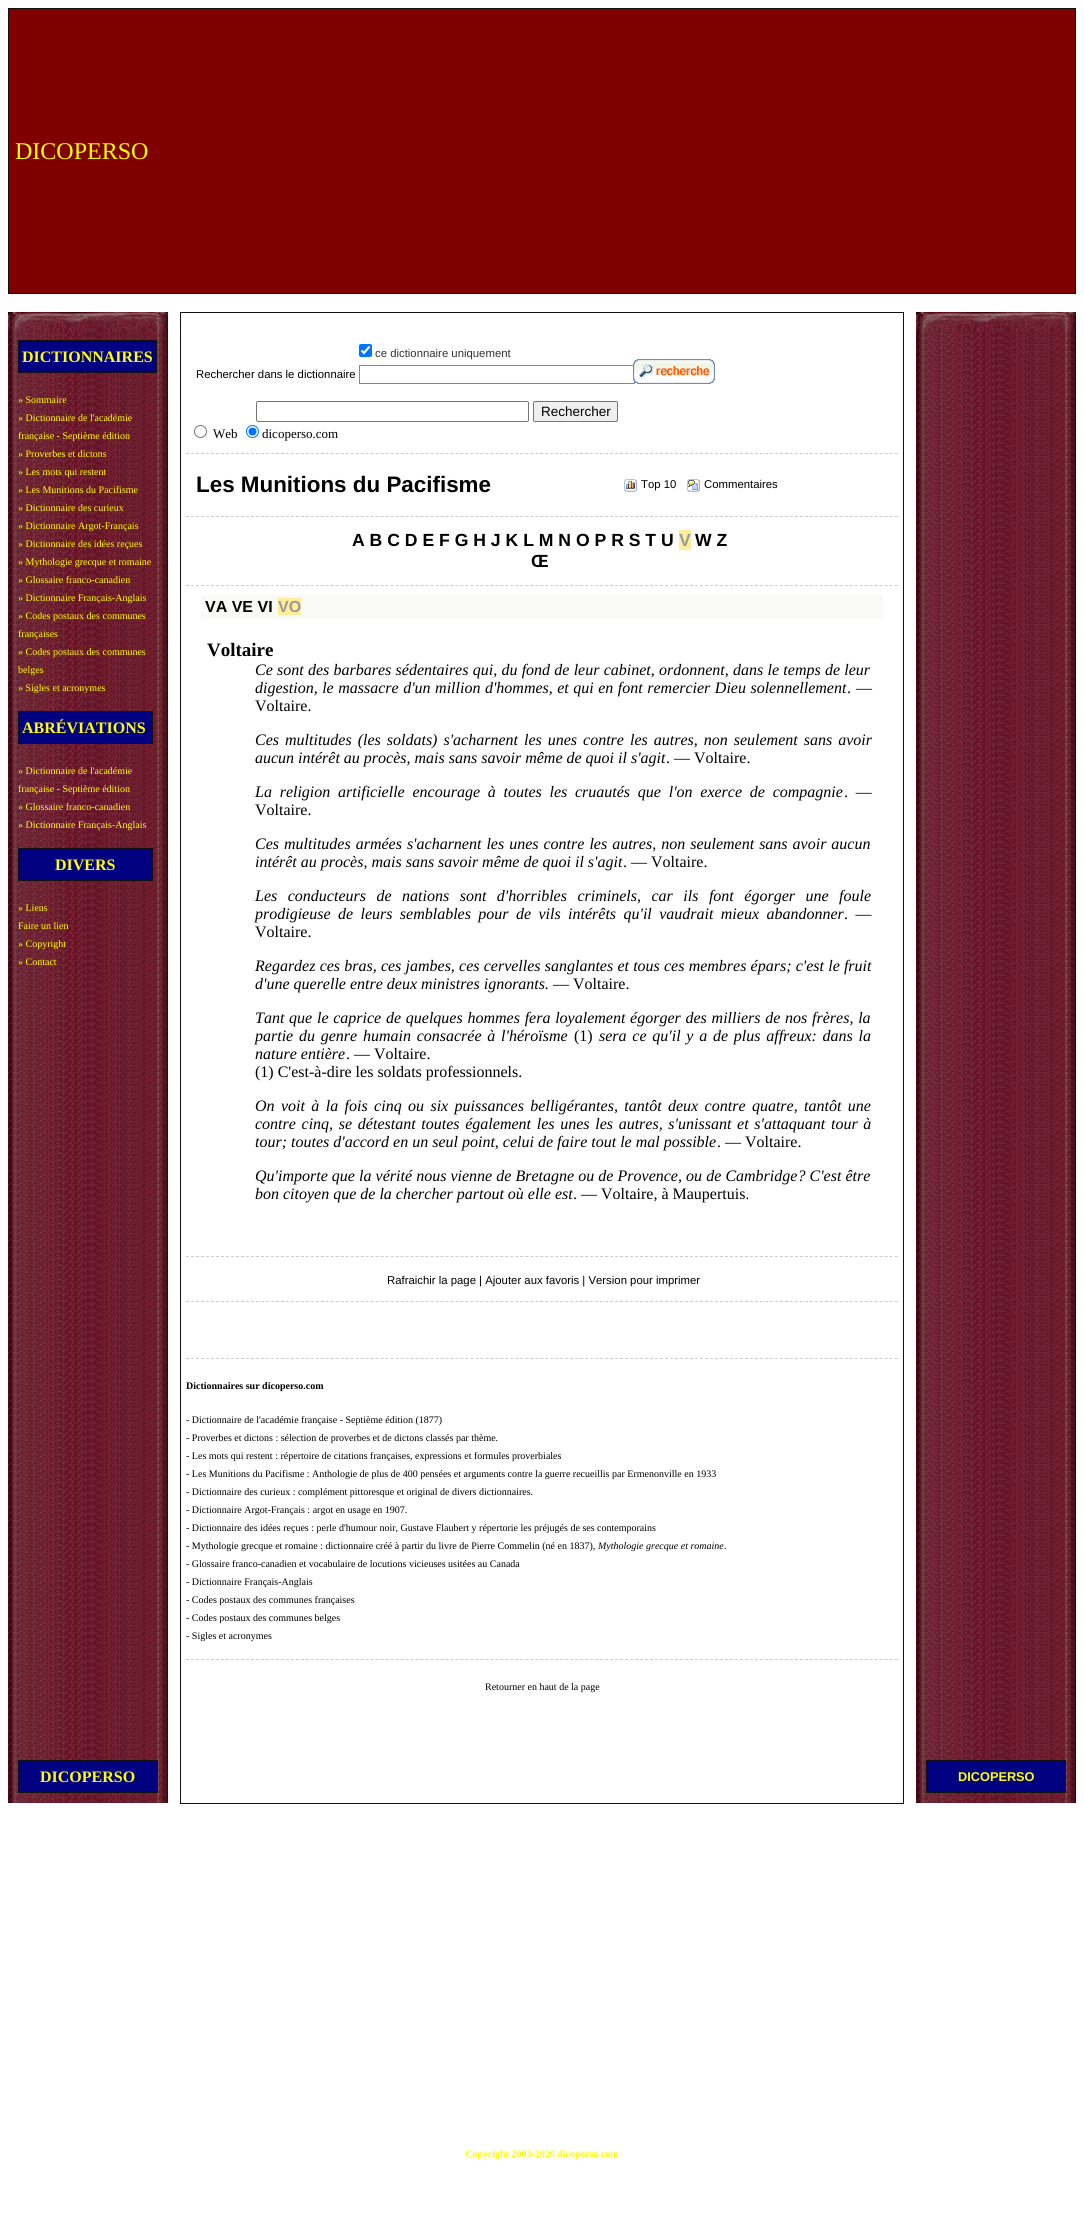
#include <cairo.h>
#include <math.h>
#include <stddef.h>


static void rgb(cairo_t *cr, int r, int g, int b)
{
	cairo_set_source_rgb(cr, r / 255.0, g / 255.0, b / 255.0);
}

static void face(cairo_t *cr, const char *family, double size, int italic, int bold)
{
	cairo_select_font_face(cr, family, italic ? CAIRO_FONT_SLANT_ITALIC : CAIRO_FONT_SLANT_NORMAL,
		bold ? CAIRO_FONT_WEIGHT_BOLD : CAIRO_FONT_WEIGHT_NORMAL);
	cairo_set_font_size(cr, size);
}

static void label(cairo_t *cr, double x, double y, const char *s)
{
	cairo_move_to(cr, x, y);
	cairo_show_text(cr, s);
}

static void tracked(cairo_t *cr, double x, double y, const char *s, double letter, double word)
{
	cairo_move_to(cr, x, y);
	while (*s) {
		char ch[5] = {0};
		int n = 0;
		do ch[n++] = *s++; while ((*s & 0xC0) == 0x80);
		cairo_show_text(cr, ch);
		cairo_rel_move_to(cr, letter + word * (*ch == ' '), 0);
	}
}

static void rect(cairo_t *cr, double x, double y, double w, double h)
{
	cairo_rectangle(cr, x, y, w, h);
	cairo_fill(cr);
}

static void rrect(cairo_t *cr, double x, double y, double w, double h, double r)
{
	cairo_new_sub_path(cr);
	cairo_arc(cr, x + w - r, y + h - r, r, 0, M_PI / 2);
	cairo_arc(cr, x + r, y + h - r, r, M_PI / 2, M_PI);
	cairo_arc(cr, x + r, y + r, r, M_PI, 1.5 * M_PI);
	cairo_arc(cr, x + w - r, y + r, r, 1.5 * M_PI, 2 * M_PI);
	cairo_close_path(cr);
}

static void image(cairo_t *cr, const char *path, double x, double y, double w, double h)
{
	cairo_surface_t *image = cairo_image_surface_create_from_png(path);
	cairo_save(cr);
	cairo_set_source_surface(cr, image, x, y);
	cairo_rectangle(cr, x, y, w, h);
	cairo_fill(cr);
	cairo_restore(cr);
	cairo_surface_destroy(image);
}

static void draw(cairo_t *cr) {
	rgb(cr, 255, 255, 255);
	cairo_paint(cr);
	rgb(cr, 128, 0, 0);
	rect(cr, 9, 9, 1066, 284);
	rgb(cr, 17, 17, 17);
	rect(cr, 8, 8, 1068, 1);
	rect(cr, 1075, 8, 1, 286);
	rect(cr, 8, 293, 1068, 1);
	rect(cr, 8, 8, 1, 286);
	face(cr, "Liberation Serif", 24, 0, 0);
	rgb(cr, 255, 255, 0);
	label(cr, 15, 159, "DICOPERSO");
	image(cr, "image0.png", 8, 312, 160, 18);
	image(cr, "image1.png", 8, 330, 160, 1473);
	rgb(cr, 0, 0, 128);
	rect(cr, 19, 341, 137, 31);
	rgb(cr, 17, 17, 17);
	rect(cr, 18, 340, 139, 1);
	rect(cr, 156, 340, 1, 33);
	rect(cr, 18, 372, 139, 1);
	rect(cr, 18, 340, 1, 33);
	face(cr, "Liberation Serif", 16, 0, 1);
	rgb(cr, 255, 255, 0);
	label(cr, 22, 362, "DICTIONNAIRES");
	face(cr, "Liberation Serif", 10, 0, 0);
	label(cr, 18, 403, "» Sommaire");
	label(cr, 18, 421, "» Dictionnaire de l'académie");
	label(cr, 18, 439, "française - Septième édition");
	label(cr, 18, 457, "» Proverbes et dictons");
	label(cr, 18, 475, "» Les mots qui restent");
	label(cr, 18, 493, "» Les Munitions du Pacifisme");
	label(cr, 18, 511, "» Dictionnaire des curieux");
	label(cr, 18, 529, "» Dictionnaire Argot-Français");
	label(cr, 18, 547, "» Dictionnaire des idées reçues");
	label(cr, 18, 565, "» Mythologie grecque et romaine");
	label(cr, 18, 583, "» Glossaire franco-canadien");
	label(cr, 18, 601, "» Dictionnaire Français-Anglais");
	label(cr, 18, 619, "» Codes postaux des communes");
	label(cr, 18, 637, "françaises");
	label(cr, 18, 655, "» Codes postaux des communes");
	label(cr, 18, 673, "belges");
	label(cr, 18, 691, "» Sigles et acronymes");
	rgb(cr, 0, 0, 128);
	rect(cr, 19, 712, 133, 31);
	rgb(cr, 17, 17, 17);
	rect(cr, 18, 711, 135, 1);
	rect(cr, 152, 711, 1, 33);
	rect(cr, 18, 743, 135, 1);
	rect(cr, 18, 711, 1, 33);
	face(cr, "Liberation Serif", 16, 0, 1);
	rgb(cr, 255, 255, 0);
	label(cr, 22, 733, "ABRÉVIATIONS");
	face(cr, "Liberation Serif", 10, 0, 0);
	label(cr, 18, 774, "» Dictionnaire de l'académie");
	label(cr, 18, 792, "française - Septième édition");
	label(cr, 18, 810, "» Glossaire franco-canadien");
	label(cr, 18, 828, "» Dictionnaire Français-Anglais");
	rgb(cr, 0, 0, 128);
	rect(cr, 19, 849, 133, 31);
	rgb(cr, 17, 17, 17);
	rect(cr, 18, 848, 135, 1);
	rect(cr, 152, 848, 1, 33);
	rect(cr, 18, 880, 135, 1);
	rect(cr, 18, 848, 1, 33);
	face(cr, "Liberation Serif", 16, 0, 1);
	rgb(cr, 255, 255, 0);
	label(cr, 55, 870, "DIVERS");
	face(cr, "Liberation Serif", 10, 0, 0);
	label(cr, 18, 911, "» Liens");
	label(cr, 18, 929, "Faire un lien");
	label(cr, 18, 947, "» Copyright");
	label(cr, 18, 965, "» Contact");
	rgb(cr, 0, 0, 128);
	rect(cr, 19, 1761, 138, 31);
	rgb(cr, 17, 17, 17);
	rect(cr, 18, 1760, 140, 1);
	rect(cr, 157, 1760, 1, 33);
	rect(cr, 18, 1792, 140, 1);
	rect(cr, 18, 1760, 1, 33);
	face(cr, "Liberation Serif", 16, 0, 1);
	rgb(cr, 255, 255, 0);
	label(cr, 40, 1782, "DICOPERSO");
	rgb(cr, 17, 17, 17);
	rect(cr, 180, 312, 724, 1);
	rect(cr, 903, 312, 1, 1492);
	rect(cr, 180, 1803, 724, 1);
	rect(cr, 180, 312, 1, 1492);
	rgb(cr, 0, 117, 255);
	rrect(cr, 359, 344, 13, 13, 2);
	cairo_fill(cr);
	cairo_new_path(cr);
	cairo_move_to(cr, 361.5, 350.5);
	cairo_line_to(cr, 364, 353);
	cairo_line_to(cr, 369.5, 346.5);
	rgb(cr, 255, 255, 255);
	cairo_set_line_width(cr, 2.1);
	cairo_stroke(cr);
	face(cr, "Liberation Sans", 11.35, 0, 0);
	rgb(cr, 51, 51, 51);
	label(cr, 375, 357, "ce dictionnaire uniquement");
	rgb(cr, 0, 0, 0);
	label(cr, 196, 378, "Rechercher dans le dictionnaire");
	cairo_rectangle(cr, 359.5, 365.5, 275, 18);
	rgb(cr, 102, 136, 204);
	cairo_set_line_width(cr, 1);
	cairo_stroke(cr);
	image(cr, "image2.png", 633, 359, 82, 25);
	rrect(cr, 256.5, 401.5, 272, 20, 1.5);
	rgb(cr, 118, 118, 118);
	cairo_stroke(cr);
	rgb(cr, 239, 239, 239);
	rrect(cr, 533.5, 401.5, 84, 20, 1.5);
	cairo_fill_preserve(cr);
	rgb(cr, 118, 118, 118);
	cairo_stroke(cr);
	face(cr, "Liberation Sans", 13.5, 0, 0);
	rgb(cr, 0, 0, 0);
	label(cr, 541, 416, "Rechercher");
	cairo_new_path(cr);
	cairo_arc(cr, 200.5, 431.5, 6, 0, 2 * M_PI);
	rgb(cr, 118, 118, 118);
	cairo_stroke(cr);
	face(cr, "Liberation Serif", 13, 0, 0);
	rgb(cr, 0, 0, 0);
	label(cr, 213, 438, "Web");
	cairo_new_path(cr);
	cairo_arc(cr, 252.5, 431.5, 6, 0, 2 * M_PI);
	rgb(cr, 0, 117, 255);
	cairo_stroke(cr);
	cairo_arc(cr, 252.5, 431.5, 4, 0, 2 * M_PI);
	cairo_fill(cr);
	rgb(cr, 0, 0, 0);
	label(cr, 262, 438, "dicoperso.com");
	cairo_new_path(cr);
	cairo_move_to(cr, 186, 453.5);
	cairo_line_to(cr, 898, 453.5);
	rgb(cr, 204, 204, 204);
	cairo_set_dash(cr, (double[]){3, 1.99}, 2, 0);
	cairo_stroke(cr);
	face(cr, "Liberation Sans", 22.4, 0, 1);
	rgb(cr, 0, 0, 0);
	label(cr, 196, 492, "Les Munitions du Pacifisme");
	image(cr, "image3.png", 624, 479, 13, 13);
	face(cr, "Liberation Sans", 11.35, 0, 0);
	label(cr, 641, 488, "Top 10");
	image(cr, "image4.png", 687, 479, 13, 13);
	label(cr, 704, 488, "Commentaires");
	cairo_new_path(cr);
	cairo_move_to(cr, 186, 516.5);
	cairo_line_to(cr, 898, 516.5);
	rgb(cr, 204, 204, 204);
	cairo_stroke(cr);
	face(cr, "Liberation Sans", 17.6, 0, 1);
	rgb(cr, 0, 0, 0);
	label(cr, 352, 546, "A B C D E F G H J K L M N O P R S T U");
	rgb(cr, 255, 238, 153);
	rect(cr, 679, 530, 12, 20);
	rgb(cr, 153, 153, 153);
	label(cr, 679, 546, "V");
	rgb(cr, 0, 0, 0);
	label(cr, 695, 546, "W Z");
	label(cr, 531, 567, "Œ");
	cairo_new_path(cr);
	cairo_move_to(cr, 186, 585.5);
	cairo_line_to(cr, 898, 585.5);
	rgb(cr, 204, 204, 204);
	cairo_stroke(cr);
	rgb(cr, 249, 250, 248);
	rect(cr, 201, 595, 682, 24);
	face(cr, "Liberation Sans", 16, 0, 1);
	rgb(cr, 0, 0, 0);
	label(cr, 205, 612, "VA VE VI");
	rgb(cr, 255, 238, 153);
	rect(cr, 278, 598, 23, 17);
	rgb(cr, 153, 153, 153);
	label(cr, 278, 612, "VO");
	face(cr, "Liberation Serif", 19, 0, 1);
	rgb(cr, 0, 0, 0);
	label(cr, 207, 656, "Voltaire");
	face(cr, "Liberation Serif", 16, 1, 0);
	tracked(cr, 255, 675, "Ce sont des barbares sédentaires qui, du fond de leur cabinet, ordonnent, dans le temps de leur", 0, 0.25);
	tracked(cr, 255, 693, "digestion, le massacre d'un million d'hommes, et qui en font remercier Dieu solennellement", 0, 0.5);
	face(cr, "Liberation Serif", 16, 0, 0);
	tracked(cr, 847, 693, ". —", 0, 1);
	label(cr, 255, 711, "Voltaire.");
	face(cr, "Liberation Serif", 16, 1, 0);
	tracked(cr, 255, 745, "Ces multitudes (les soldats) s'acharnent les unes contre les autres, non seulement sans avoir", 0, 2);
	label(cr, 255, 763, "aucun intérêt au procès, mais sans savoir même de quoi il s'agit");
	face(cr, "Liberation Serif", 16, 0, 0);
	label(cr, 666, 763, ". — Voltaire.");
	face(cr, "Liberation Serif", 16, 1, 0);
	tracked(cr, 255, 797, "La religion artificielle encourage à toutes les cruautés que l'on exerce de compagnie", 0, 3.75);
	face(cr, "Liberation Serif", 16, 0, 0);
	tracked(cr, 844, 797, ". —", 0, 3.75);
	label(cr, 255, 815, "Voltaire.");
	face(cr, "Liberation Serif", 16, 1, 0);
	tracked(cr, 255, 849, "Ces multitudes armées s'acharnent les unes contre les autres, non seulement sans avoir aucun", 0, 1);
	label(cr, 255, 867, "intérêt au procès, mais sans savoir même de quoi il s'agit");
	face(cr, "Liberation Serif", 16, 0, 0);
	label(cr, 623, 867, ". — Voltaire.");
	face(cr, "Liberation Serif", 16, 1, 0);
	tracked(cr, 255, 901, "Les conducteurs de nations sont d'horribles criminels, car ils font égorger une foule", 0, 6.5);
	tracked(cr, 255, 919, "prodigieuse de leurs semblables pour de vils intérêts qu'il vaudrait mieux abandonner", 0, 3.4);
	face(cr, "Liberation Serif", 16, 0, 0);
	tracked(cr, 844, 919, ". —", 0, 3.4);
	label(cr, 255, 937, "Voltaire.");
	face(cr, "Liberation Serif", 16, 1, 0);
	tracked(cr, 255, 971, "Regardez ces bras, ces jambes, ces cervelles sanglantes et tous ces membres épars; c'est le fruit", 0, 0.2);
	label(cr, 255, 989, "d'une querelle entre deux ministres ignorants.");
	face(cr, "Liberation Serif", 16, 0, 0);
	label(cr, 553, 989, "— Voltaire.");
	face(cr, "Liberation Serif", 16, 1, 0);
	tracked(cr, 255, 1023, "Tant que le caprice de quelques hommes fera loyalement égorger des milliers de nos frères, la", 0, 0.75);
	tracked(cr, 255, 1041, "partie du genre humain consacrée à l'héroïsme", 0, 1.75);
	face(cr, "Liberation Serif", 16, 0, 0);
	label(cr, 574, 1041, "(1)");
	face(cr, "Liberation Serif", 16, 1, 0);
	tracked(cr, 599, 1041, "sera ce qu'il y a de plus affreux: dans la", 0, 1.75);
	label(cr, 255, 1059, "nature entière");
	face(cr, "Liberation Serif", 16, 0, 0);
	label(cr, 346, 1059, ". — Voltaire.");
	label(cr, 255, 1077, "(1) C'est-à-dire les soldats professionnels.");
	face(cr, "Liberation Serif", 16, 1, 0);
	tracked(cr, 255, 1111, "On voit à la fois cinq ou six puissances belligérantes, tantôt deux contre quatre, tantôt une", 0, 2.4);
	tracked(cr, 255, 1129, "contre cinq, se détestant toutes également les unes les autres, s'unissant et s'attaquant tour à", 0, 1.7);
	label(cr, 255, 1147, "tour; toutes d'accord en un seul point, celui de faire tout le mal possible");
	face(cr, "Liberation Serif", 16, 0, 0);
	label(cr, 717, 1147, ". — Voltaire.");
	face(cr, "Liberation Serif", 16, 1, 0);
	tracked(cr, 255, 1181, "Qu'importe que la vérité nous vienne de Bretagne ou de Provence, ou de Cambridge? C'est être", 0, 0.1);
	label(cr, 255, 1199, "bon citoyen que de la chercher partout où elle est");
	face(cr, "Liberation Serif", 16, 0, 0);
	label(cr, 573, 1199, ". — Voltaire, à Maupertuis.");
	cairo_new_path(cr);
	cairo_move_to(cr, 186, 1256.5);
	cairo_line_to(cr, 898, 1256.5);
	rgb(cr, 204, 204, 204);
	cairo_stroke(cr);
	face(cr, "Liberation Sans", 11.35, 0, 0);
	rgb(cr, 0, 0, 0);
	label(cr, 387, 1284, "Rafraichir la page | Ajouter aux favoris | Version pour imprimer");
	cairo_new_path(cr);
	cairo_move_to(cr, 186, 1301.5);
	cairo_line_to(cr, 898, 1301.5);
	rgb(cr, 204, 204, 204);
	cairo_stroke(cr);
	cairo_new_path(cr);
	cairo_move_to(cr, 186, 1358.5);
	cairo_line_to(cr, 898, 1358.5);
	cairo_stroke(cr);
	face(cr, "Liberation Serif", 10, 0, 1);
	rgb(cr, 0, 0, 0);
	label(cr, 186, 1389, "Dictionnaires sur dicoperso.com");
	face(cr, "Liberation Serif", 10, 0, 0);
	label(cr, 186, 1423, "- Dictionnaire de l'académie française - Septième édition (1877)");
	label(cr, 186, 1441, "- Proverbes et dictons : sélection de proverbes et de dictons classés par thème.");
	label(cr, 186, 1459, "- Les mots qui restent : répertoire de citations françaises, expressions et formules proverbiales");
	label(cr, 186, 1477, "- Les Munitions du Pacifisme : Anthologie de plus de 400 pensées et arguments contre la guerre recueillis par Ermenonville en 1933");
	label(cr, 186, 1495, "- Dictionnaire des curieux : complément pittoresque et original de divers dictionnaires.");
	label(cr, 186, 1513, "- Dictionnaire Argot-Français : argot en usage en 1907.");
	label(cr, 186, 1531, "- Dictionnaire des idées reçues : perle d'humour noir, Gustave Flaubert y répertorie les préjugés de ses contemporains");
	label(cr, 186, 1549, "- Mythologie grecque et romaine : dictionnaire créé à partir du livre de Pierre Commelin (né en 1837),");
	face(cr, "Liberation Serif", 10, 1, 0);
	label(cr, 598, 1549, "Mythologie grecque et romaine");
	face(cr, "Liberation Serif", 10, 0, 0);
	label(cr, 724, 1549, ".");
	label(cr, 186, 1567, "- Glossaire franco-canadien et vocabulaire de locutions vicieuses usitées au Canada");
	label(cr, 186, 1585, "- Dictionnaire Français-Anglais");
	label(cr, 186, 1603, "- Codes postaux des communes françaises");
	label(cr, 186, 1621, "- Codes postaux des communes belges");
	label(cr, 186, 1639, "- Sigles et acronymes");
	cairo_new_path(cr);
	cairo_move_to(cr, 186, 1659.5);
	cairo_line_to(cr, 898, 1659.5);
	rgb(cr, 204, 204, 204);
	cairo_stroke(cr);
	rgb(cr, 0, 0, 0);
	label(cr, 485, 1690, "Retourner en haut de la page");
	image(cr, "image0.png", 916, 312, 160, 18);
	image(cr, "image1.png", 916, 330, 160, 1473);
	rgb(cr, 0, 0, 128);
	rect(cr, 927, 1761, 138, 31);
	rgb(cr, 17, 17, 17);
	rect(cr, 926, 1760, 140, 1);
	rect(cr, 1065, 1760, 1, 33);
	rect(cr, 926, 1792, 140, 1);
	rect(cr, 926, 1760, 1, 33);
	face(cr, "Liberation Sans", 12.75, 0, 1);
	rgb(cr, 255, 255, 0);
	label(cr, 958, 1781, "DICOPERSO");
	face(cr, "Liberation Serif", 10, 0, 1);
	label(cr, 465, 2157, "Copyright 2003-2026 dicoperso.com");
}

int main(void) {
	cairo_surface_t *surface = cairo_image_surface_create(CAIRO_FORMAT_RGB24, 1084, 2214);
	cairo_t *cr = cairo_create(surface);
	cairo_font_options_t *options = cairo_font_options_create();
	cairo_font_options_set_hint_metrics(options, CAIRO_HINT_METRICS_OFF);
	cairo_font_options_set_hint_style(options, CAIRO_HINT_STYLE_NONE);
	cairo_set_font_options(cr, options);
	cairo_set_miter_limit(cr, 4);
	draw(cr);
	cairo_surface_write_to_png(surface, "render.png");
	cairo_font_options_destroy(options);
	cairo_destroy(cr);
	cairo_surface_destroy(surface);
	return 0;
}
